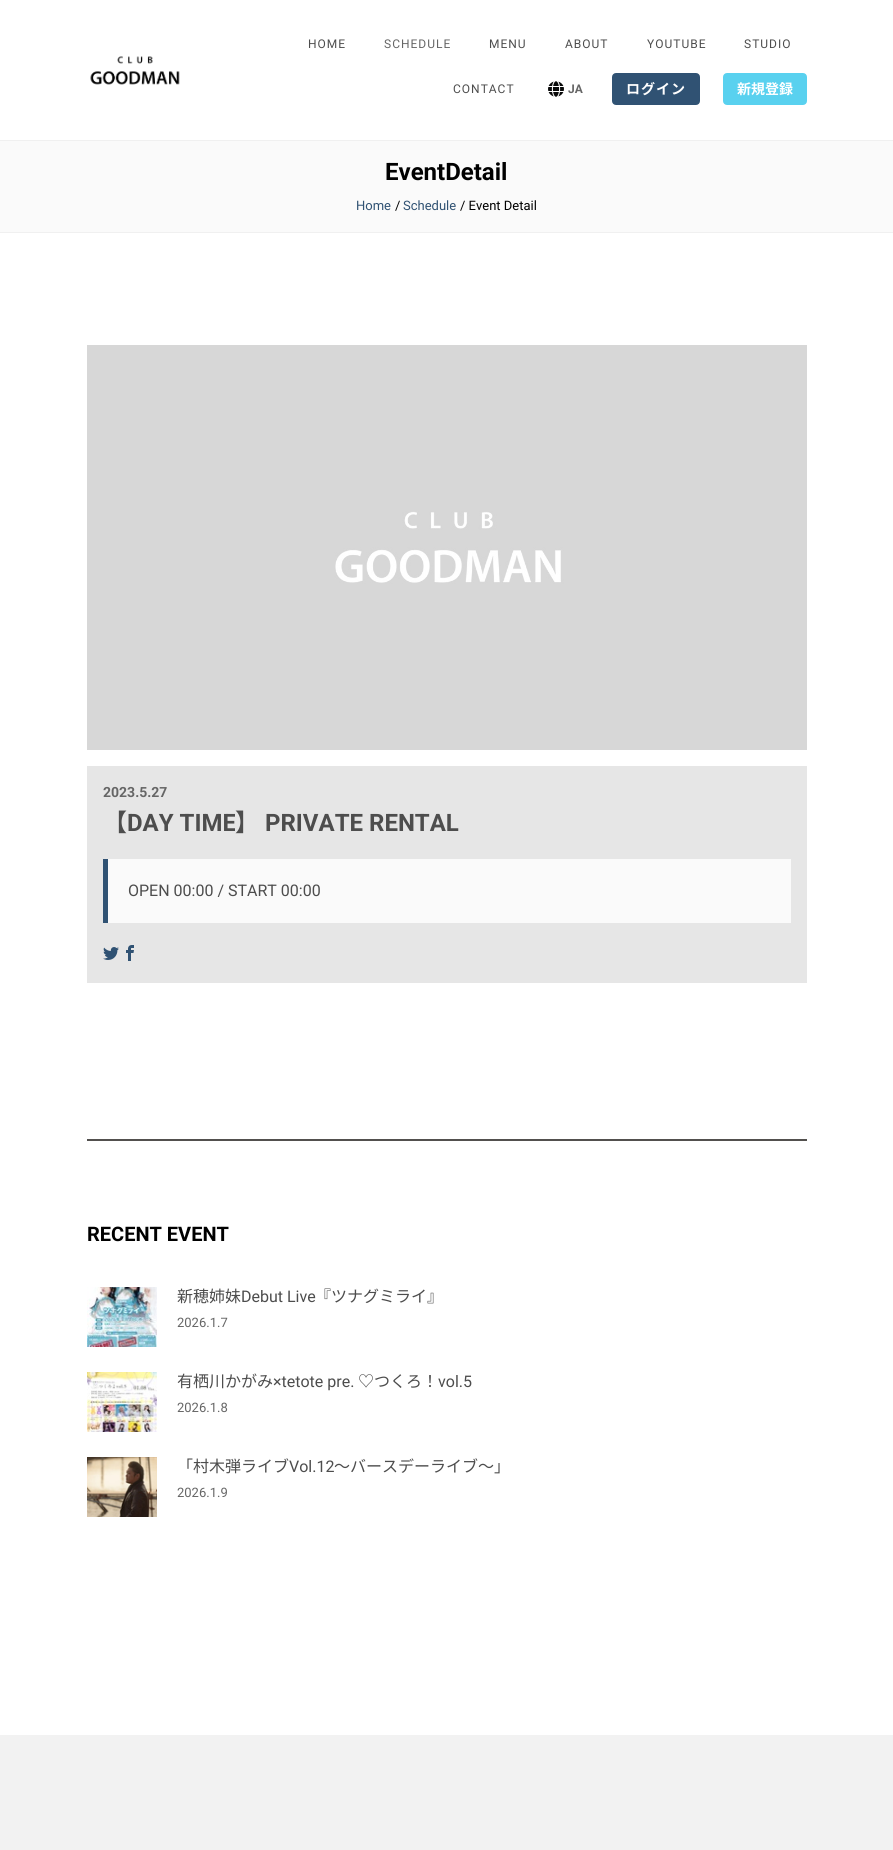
#include <cairo.h>
#include <math.h>
#include <stddef.h>


static void rgb(cairo_t *cr, int r, int g, int b)
{
	cairo_set_source_rgb(cr, r / 255.0, g / 255.0, b / 255.0);
}

static void face(cairo_t *cr, const char *family, double size, int italic, int bold)
{
	cairo_select_font_face(cr, family, italic ? CAIRO_FONT_SLANT_ITALIC : CAIRO_FONT_SLANT_NORMAL,
		bold ? CAIRO_FONT_WEIGHT_BOLD : CAIRO_FONT_WEIGHT_NORMAL);
	cairo_set_font_size(cr, size);
}

static void label(cairo_t *cr, double x, double y, const char *s)
{
	cairo_move_to(cr, x, y);
	cairo_show_text(cr, s);
}

static void tracked(cairo_t *cr, double x, double y, const char *s, double letter, double word)
{
	cairo_move_to(cr, x, y);
	while (*s) {
		char ch[5] = {0};
		int n = 0;
		do ch[n++] = *s++; while ((*s & 0xC0) == 0x80);
		cairo_show_text(cr, ch);
		cairo_rel_move_to(cr, letter + word * (*ch == ' '), 0);
	}
}

static void rect(cairo_t *cr, double x, double y, double w, double h)
{
	cairo_rectangle(cr, x, y, w, h);
	cairo_fill(cr);
}

static void rrect(cairo_t *cr, double x, double y, double w, double h, double r)
{
	cairo_new_sub_path(cr);
	cairo_arc(cr, x + w - r, y + h - r, r, 0, M_PI / 2);
	cairo_arc(cr, x + r, y + h - r, r, M_PI / 2, M_PI);
	cairo_arc(cr, x + r, y + r, r, M_PI, 1.5 * M_PI);
	cairo_arc(cr, x + w - r, y + r, r, 1.5 * M_PI, 2 * M_PI);
	cairo_close_path(cr);
}

static void image(cairo_t *cr, const char *path, double x, double y, double w, double h)
{
	cairo_surface_t *image = cairo_image_surface_create_from_png(path);
	cairo_save(cr);
	cairo_set_source_surface(cr, image, x, y);
	cairo_rectangle(cr, x, y, w, h);
	cairo_fill(cr);
	cairo_restore(cr);
	cairo_surface_destroy(image);
}

static void draw(cairo_t *cr) {
	rgb(cr, 255, 255, 255);
	cairo_paint(cr);
	image(cr, "image0.png", 90, 56, 90, 29);
	face(cr, "Roboto", 12, 0, 0);
	rgb(cr, 77, 77, 77);
	tracked(cr, 308, 48, "HOME", 1, 0);
	rgb(cr, 102, 102, 102);
	tracked(cr, 384, 48, "SCHEDULE", 1, 0);
	rgb(cr, 77, 77, 77);
	tracked(cr, 489, 48, "MENU", 1, 0);
	tracked(cr, 565, 48, "ABOUT", 1, 0);
	tracked(cr, 647, 48, "YOUTUBE", 1, 0);
	tracked(cr, 744, 48, "STUDIO", 1, 0);
	tracked(cr, 453, 93, "CONTACT", 1, 0);
	image(cr, "image1.png", 548, 81, 16, 16);
	face(cr, "Roboto", 12, 0, 1);
	rgb(cr, 102, 102, 102);
	label(cr, 568, 93, "JA");
	rgb(cr, 48, 82, 115);
	rrect(cr, 613, 74, 86, 30, 3);
	cairo_fill_preserve(cr);
	cairo_stroke(cr);
	face(cr, "Noto Sans JP", 14, 0, 1);
	rgb(cr, 255, 255, 255);
	tracked(cr, 626, 94, "ログイン", 1, 0);
	rgb(cr, 89, 209, 239);
	rrect(cr, 724, 74, 82, 30, 3);
	cairo_fill_preserve(cr);
	cairo_stroke(cr);
	rgb(cr, 255, 255, 255);
	label(cr, 737, 94, "新規登録");
	rgb(cr, 250, 250, 250);
	rect(cr, 0, 141, 893, 91);
	rgb(cr, 240, 240, 240);
	rect(cr, 0, 140, 893, 1);
	rect(cr, 0, 232, 893, 1);
	face(cr, "Roboto", 24, 0, 1);
	rgb(cr, 0, 0, 0);
	label(cr, 385, 180, "EventDetail");
	face(cr, "Roboto", 13, 0, 0);
	rgb(cr, 48, 82, 115);
	label(cr, 356, 210, "Home");
	rgb(cr, 0, 0, 0);
	label(cr, 395, 210, "/");
	rgb(cr, 48, 82, 115);
	label(cr, 403, 210, "Schedule");
	rgb(cr, 0, 0, 0);
	label(cr, 460, 210, "/ Event Detail");
	image(cr, "image2.png", 87, 345, 720, 405);
	rgb(cr, 230, 230, 230);
	rect(cr, 87, 766, 720, 217);
	face(cr, "Roboto", 14, 0, 1);
	rgb(cr, 102, 102, 102);
	label(cr, 103, 797, "2023.5.27");
	face(cr, "Noto Sans JP", 24, 0, 1);
	rgb(cr, 77, 77, 77);
	label(cr, 103, 831, "【");
	face(cr, "Roboto", 24, 0, 1);
	label(cr, 127, 831, "DAY TIME");
	face(cr, "Noto Sans JP", 24, 0, 1);
	label(cr, 235, 831, "】");
	face(cr, "Roboto", 24, 0, 1);
	label(cr, 265, 831, "PRIVATE RENTAL");
	rgb(cr, 250, 250, 250);
	rect(cr, 108, 859, 683, 64);
	rgb(cr, 48, 82, 115);
	rect(cr, 103, 859, 5, 64);
	face(cr, "Roboto", 16, 0, 0);
	rgb(cr, 77, 77, 77);
	label(cr, 128, 896, "OPEN 00:00 / START 00:00");
	image(cr, "image3.png", 103, 947, 16, 13);
	image(cr, "image4.png", 126, 945, 8, 16);
	rgb(cr, 82, 80, 78);
	rect(cr, 87, 1139, 720, 2);
	face(cr, "Roboto", 20, 0, 1);
	rgb(cr, 0, 0, 0);
	label(cr, 87, 1241, "RECENT EVENT");
	image(cr, "image5.png", 87, 1287, 70, 60);
	face(cr, "Noto Sans JP", 16, 0, 0);
	rgb(cr, 77, 77, 77);
	label(cr, 177, 1302, "新穂姉妹");
	face(cr, "Roboto", 16, 0, 0);
	label(cr, 241, 1302, "Debut Live");
	face(cr, "Noto Sans JP", 16, 0, 0);
	label(cr, 315, 1302, "『ツナグミライ』");
	face(cr, "Roboto", 13, 0, 0);
	rgb(cr, 102, 102, 102);
	label(cr, 177, 1327, "2026.1.7");
	image(cr, "image6.png", 87, 1372, 70, 60);
	face(cr, "Noto Sans JP", 16, 0, 0);
	rgb(cr, 77, 77, 77);
	label(cr, 177, 1387, "有栖川かがみ");
	face(cr, "Roboto", 16, 0, 0);
	label(cr, 273, 1387, "×tetote pre.");
	face(cr, "Noto Sans JP", 16, 0, 0);
	label(cr, 358, 1387, "♡つくろ！");
	face(cr, "Roboto", 16, 0, 0);
	label(cr, 438, 1387, "vol.5");
	face(cr, "Roboto", 13, 0, 0);
	rgb(cr, 102, 102, 102);
	label(cr, 177, 1412, "2026.1.8");
	image(cr, "image7.png", 87, 1457, 70, 60);
	face(cr, "Noto Sans JP", 16, 0, 0);
	rgb(cr, 77, 77, 77);
	label(cr, 177, 1472, "「村木弾ライブ");
	face(cr, "Roboto", 16, 0, 0);
	label(cr, 289, 1472, "Vol.12");
	face(cr, "Noto Sans JP", 16, 0, 0);
	label(cr, 334, 1472, "～バースデーライブ～」");
	face(cr, "Roboto", 13, 0, 0);
	rgb(cr, 102, 102, 102);
	label(cr, 177, 1497, "2026.1.9");
	rgb(cr, 242, 242, 242);
	rect(cr, 0, 1735, 893, 115);
}

int main(void) {
	cairo_surface_t *surface = cairo_image_surface_create(CAIRO_FORMAT_RGB24, 893, 1850);
	cairo_t *cr = cairo_create(surface);
	cairo_font_options_t *options = cairo_font_options_create();
	cairo_font_options_set_hint_metrics(options, CAIRO_HINT_METRICS_OFF);
	cairo_font_options_set_hint_style(options, CAIRO_HINT_STYLE_NONE);
	cairo_set_font_options(cr, options);
	cairo_set_miter_limit(cr, 4);
	draw(cr);
	cairo_surface_write_to_png(surface, "render.png");
	cairo_font_options_destroy(options);
	cairo_destroy(cr);
	cairo_surface_destroy(surface);
	return 0;
}
